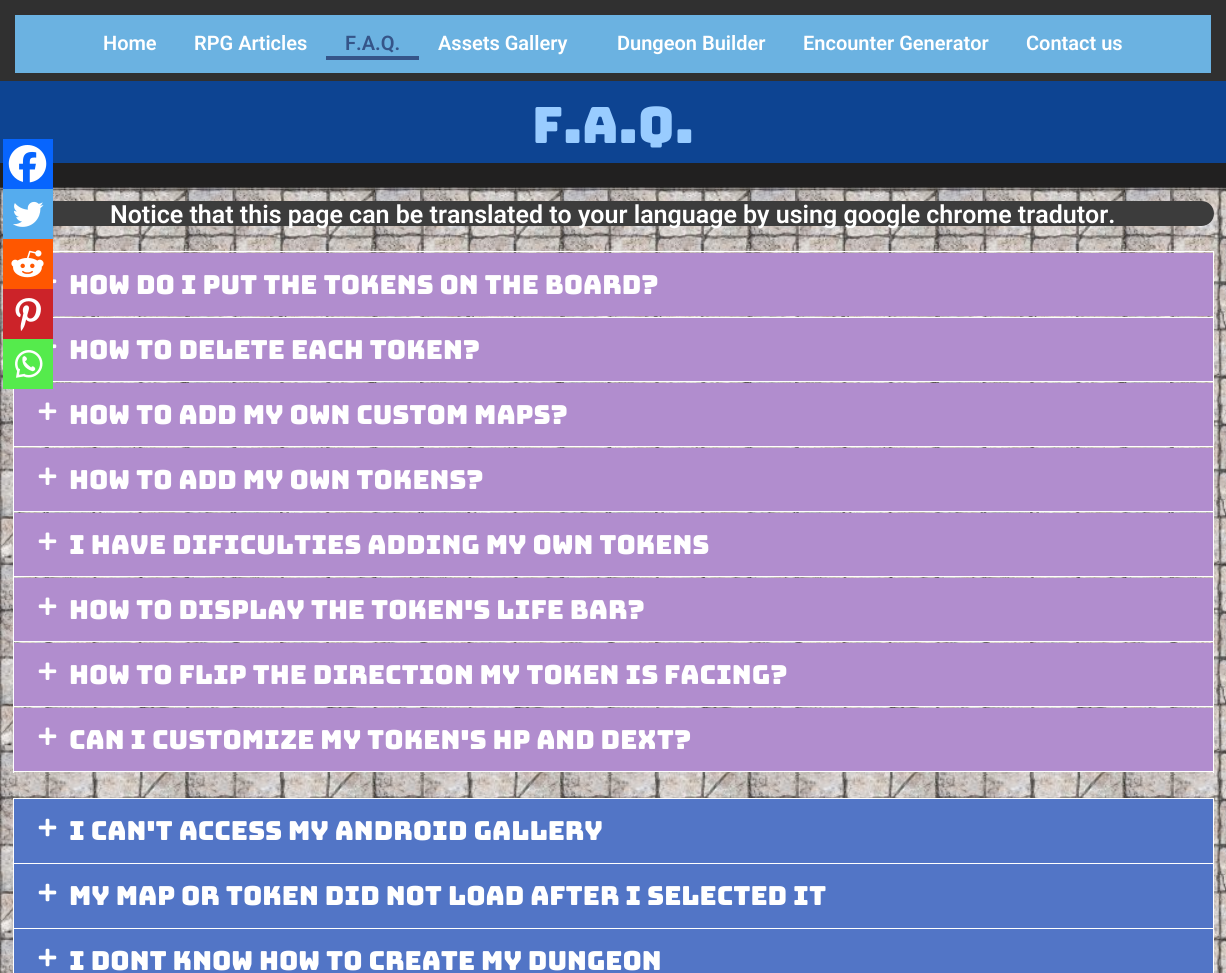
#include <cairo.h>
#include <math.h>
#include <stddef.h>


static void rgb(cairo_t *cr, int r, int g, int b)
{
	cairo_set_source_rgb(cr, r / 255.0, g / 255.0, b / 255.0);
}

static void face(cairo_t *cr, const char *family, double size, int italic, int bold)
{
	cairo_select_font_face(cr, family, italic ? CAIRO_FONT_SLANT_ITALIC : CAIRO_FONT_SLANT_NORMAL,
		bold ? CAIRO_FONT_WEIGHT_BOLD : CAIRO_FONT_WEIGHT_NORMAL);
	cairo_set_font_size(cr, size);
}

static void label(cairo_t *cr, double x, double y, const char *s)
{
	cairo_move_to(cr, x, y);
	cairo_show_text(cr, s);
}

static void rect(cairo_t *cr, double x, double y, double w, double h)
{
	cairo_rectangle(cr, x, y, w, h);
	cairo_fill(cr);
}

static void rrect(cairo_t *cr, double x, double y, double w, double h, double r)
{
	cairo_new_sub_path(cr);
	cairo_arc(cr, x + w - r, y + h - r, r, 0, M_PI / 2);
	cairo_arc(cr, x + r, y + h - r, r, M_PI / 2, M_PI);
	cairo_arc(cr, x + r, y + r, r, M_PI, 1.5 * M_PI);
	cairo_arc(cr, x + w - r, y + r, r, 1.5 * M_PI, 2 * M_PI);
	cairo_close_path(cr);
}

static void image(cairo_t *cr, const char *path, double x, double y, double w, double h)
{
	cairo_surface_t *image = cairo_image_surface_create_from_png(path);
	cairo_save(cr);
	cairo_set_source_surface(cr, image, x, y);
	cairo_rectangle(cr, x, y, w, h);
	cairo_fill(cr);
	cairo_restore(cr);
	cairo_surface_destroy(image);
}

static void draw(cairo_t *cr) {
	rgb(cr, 255, 255, 255);
	cairo_paint(cr);
	rgb(cr, 107, 178, 225);
	cairo_rectangle(cr, 7.5, 7.5, 1211, 73);
	cairo_fill_preserve(cr);
	rgb(cr, 48, 48, 48);
	cairo_set_line_width(cr, 15);
	cairo_stroke(cr);
	rgb(cr, 13, 68, 146);
	rect(cr, 0, 81, 1226, 82);
	rgb(cr, 33, 32, 32);
	rect(cr, 0, 163, 1226, 25);
	image(cr, "image5.png", 0, 187, 1226, 2);
	image(cr, "image6.png", 0, 188, 1226, 785);
	rgb(cr, 7, 101, 254);
	rect(cr, 3, 139, 50, 50);
	image(cr, "image0.png", 8, 145, 39, 38);
	rgb(cr, 60, 60, 60);
	rrect(cr, 13, 201, 1201, 25, 12.5);
	cairo_fill(cr);
	rgb(cr, 85, 172, 238);
	rect(cr, 3, 189, 50, 50);
	image(cr, "image1.png", 13, 201, 31, 26);
	cairo_rectangle(cr, 13.5, 251.5, 1200, 66);
	rgb(cr, 255, 255, 255);
	cairo_set_line_width(cr, 1);
	cairo_stroke(cr);
	rgb(cr, 255, 87, 0);
	rect(cr, 3, 239, 50, 50);
	image(cr, "image2.png", 11, 250, 33, 28);
	rgb(cr, 204, 35, 41);
	rect(cr, 3, 289, 50, 50);
	image(cr, "image3.png", 15, 298, 26, 33);
	rgb(cr, 255, 255, 255);
	rect(cr, 1213, 318, 1, 455);
	rect(cr, 13, 446, 1201, 1);
	rect(cr, 13, 383, 1, 65);
	rgb(cr, 177, 141, 206);
	rect(cr, 14, 383, 1199, 63);
	rgb(cr, 85, 235, 76);
	rect(cr, 3, 339, 50, 50);
	image(cr, "image4.png", 15, 350, 28, 28);
	face(cr, "Roboto SemiBold", 20, 0, 0);
	rgb(cr, 255, 255, 255);
	label(cr, 103, 50, "Home");
	label(cr, 194, 50, "RPG Articles");
	rgb(cr, 53, 85, 137);
	label(cr, 345, 50, "F.A.Q.");
	rect(cr, 326, 56, 93, 4);
	rgb(cr, 255, 255, 255);
	label(cr, 438, 50, "Assets Gallery");
	label(cr, 617, 50, "Dungeon Builder");
	label(cr, 803, 50, "Encounter Generator");
	label(cr, 1026, 50, "Contact us");
	face(cr, "Bungee", 50, 0, 0);
	rgb(cr, 153, 204, 255);
	label(cr, 532, 143, "F.A.Q.");
	face(cr, "Roboto SemiBold", 25, 0, 0);
	rgb(cr, 255, 255, 255);
	label(cr, 110, 223, "Notice that this page can be translated to your language by using google chrome tradutor.");
	rgb(cr, 177, 141, 206);
	rect(cr, 53, 253, 1160, 63);
	image(cr, "image7.png", 53, 279, 4, 5);
	face(cr, "Bungee", 26.25, 0, 0);
	rgb(cr, 255, 255, 255);
	label(cr, 69, 294, "How do I put the tokens on the board?");
	rect(cr, 53, 381, 1161, 1);
	rgb(cr, 177, 141, 206);
	rect(cr, 53, 318, 1160, 63);
	image(cr, "image7.png", 53, 344, 4, 5);
	rgb(cr, 255, 255, 255);
	label(cr, 69, 359, "How to delete each token?");
	image(cr, "image8.png", 38, 402, 19, 18);
	label(cr, 69, 424, "How to add my own custom Maps?");
	rect(cr, 13, 511, 1201, 1);
	rect(cr, 13, 448, 1, 65);
	rgb(cr, 177, 141, 206);
	rect(cr, 14, 448, 1199, 63);
	image(cr, "image8.png", 38, 467, 19, 18);
	rgb(cr, 255, 255, 255);
	label(cr, 69, 489, "How to add my own tokens?");
	rect(cr, 13, 576, 1201, 1);
	rect(cr, 13, 513, 1, 65);
	rgb(cr, 177, 141, 206);
	rect(cr, 14, 513, 1199, 63);
	image(cr, "image8.png", 38, 532, 19, 18);
	rgb(cr, 255, 255, 255);
	label(cr, 69, 554, "I have dificulties adding my own tokens");
	rect(cr, 13, 641, 1201, 1);
	rect(cr, 13, 578, 1, 65);
	rgb(cr, 177, 141, 206);
	rect(cr, 14, 578, 1199, 63);
	image(cr, "image8.png", 38, 597, 19, 18);
	rgb(cr, 255, 255, 255);
	label(cr, 69, 619, "How to display the token's life bar?");
	rect(cr, 13, 706, 1201, 1);
	rect(cr, 13, 643, 1, 65);
	rgb(cr, 177, 141, 206);
	rect(cr, 14, 643, 1199, 63);
	image(cr, "image8.png", 38, 662, 19, 18);
	rgb(cr, 255, 255, 255);
	label(cr, 69, 684, "How to flip the direction my token is facing?");
	rect(cr, 13, 771, 1201, 1);
	rect(cr, 13, 708, 1, 65);
	rgb(cr, 177, 141, 206);
	rect(cr, 14, 708, 1199, 63);
	image(cr, "image8.png", 38, 727, 19, 18);
	rgb(cr, 255, 255, 255);
	label(cr, 69, 749, "Can I customize my token's HP and Dext?");
	cairo_rectangle(cr, 13.5, 798.5, 1200, 65);
	cairo_stroke(cr);
	rgb(cr, 82, 117, 198);
	rect(cr, 14, 799, 1199, 64);
	image(cr, "image9.png", 38, 818, 19, 19);
	rgb(cr, 255, 255, 255);
	label(cr, 69, 840, "I can't access my android gallery");
	rect(cr, 1213, 864, 1, 109);
	rect(cr, 13, 928, 1201, 1);
	rect(cr, 13, 864, 1, 109);
	rgb(cr, 82, 117, 198);
	rect(cr, 14, 864, 1199, 64);
	image(cr, "image9.png", 38, 883, 19, 19);
	rgb(cr, 255, 255, 255);
	label(cr, 69, 905, "My map or token did not load after i selected it");
	rgb(cr, 82, 117, 198);
	rect(cr, 14, 929, 1199, 44);
	image(cr, "image9.png", 38, 948, 19, 19);
	rgb(cr, 255, 255, 255);
	label(cr, 69, 970, "I dont know how to create my dungeon");
}

int main(void) {
	cairo_surface_t *surface = cairo_image_surface_create(CAIRO_FORMAT_RGB24, 1226, 973);
	cairo_t *cr = cairo_create(surface);
	cairo_font_options_t *options = cairo_font_options_create();
	cairo_font_options_set_hint_metrics(options, CAIRO_HINT_METRICS_OFF);
	cairo_font_options_set_hint_style(options, CAIRO_HINT_STYLE_NONE);
	cairo_set_font_options(cr, options);
	cairo_set_miter_limit(cr, 4);
	draw(cr);
	cairo_surface_write_to_png(surface, "render.png");
	cairo_font_options_destroy(options);
	cairo_destroy(cr);
	cairo_surface_destroy(surface);
	return 0;
}
